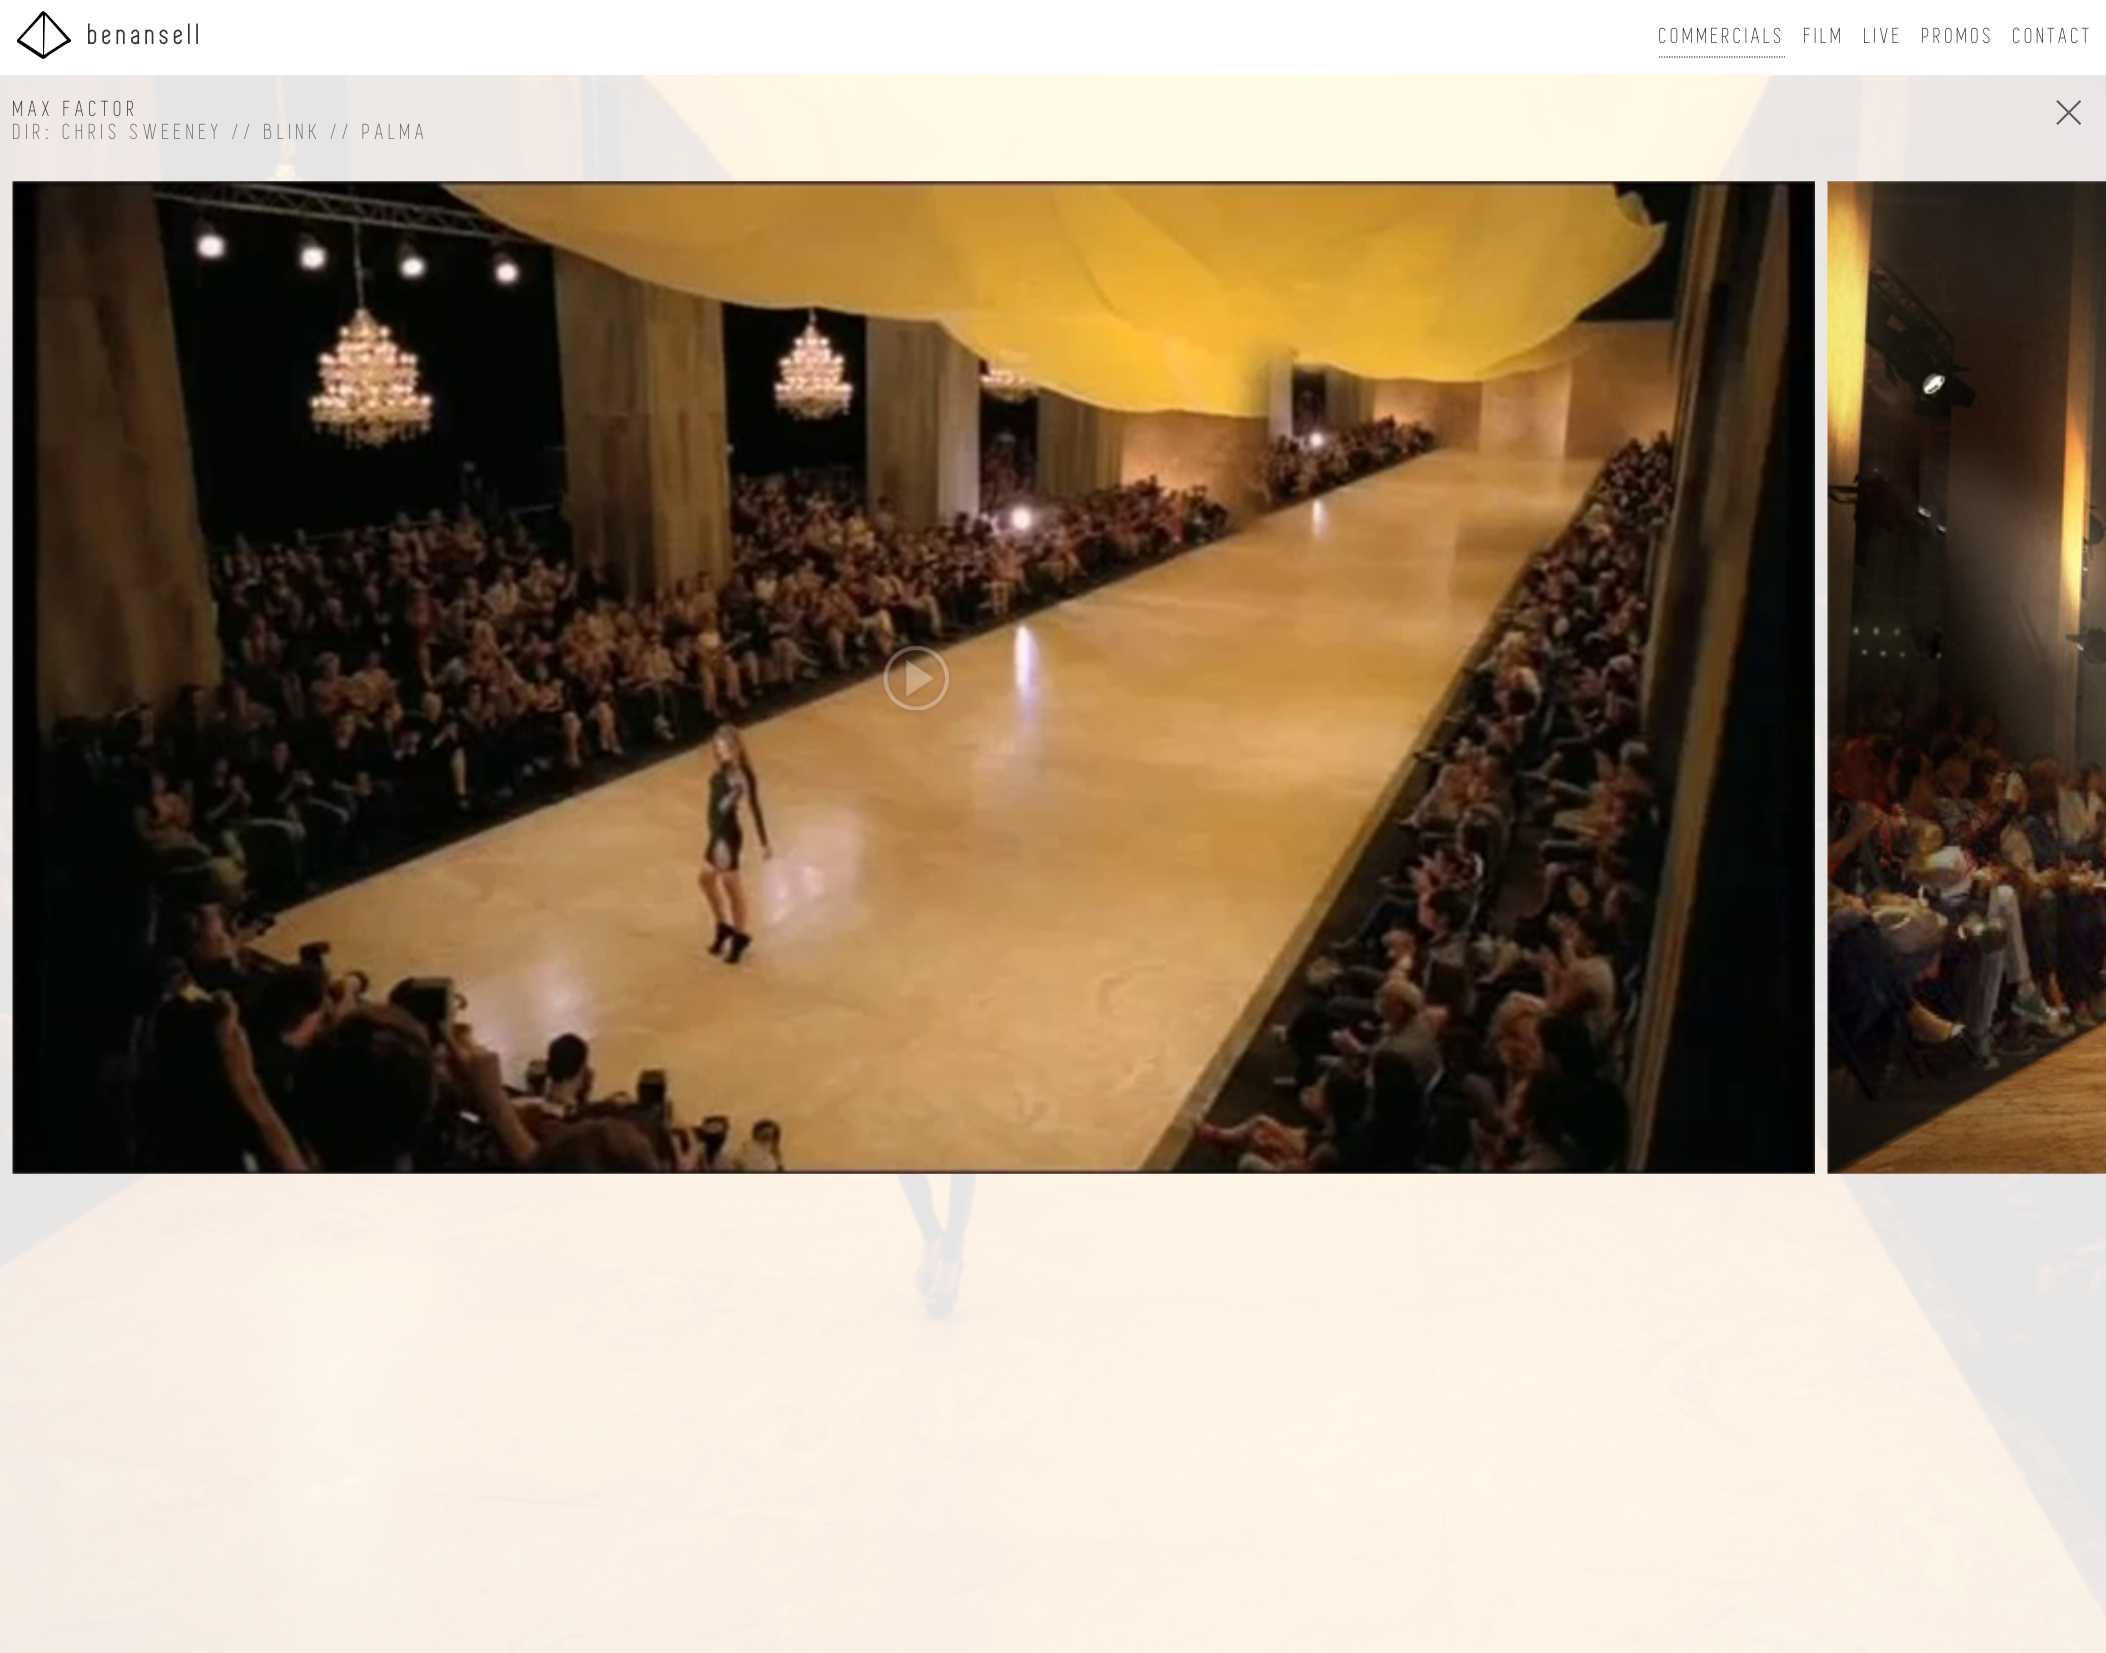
#include <cairo.h>
#include <math.h>
#include <stddef.h>


static void rgb(cairo_t *cr, int r, int g, int b)
{
	cairo_set_source_rgb(cr, r / 255.0, g / 255.0, b / 255.0);
}

static void face(cairo_t *cr, const char *family, double size, int italic, int bold)
{
	cairo_select_font_face(cr, family, italic ? CAIRO_FONT_SLANT_ITALIC : CAIRO_FONT_SLANT_NORMAL,
		bold ? CAIRO_FONT_WEIGHT_BOLD : CAIRO_FONT_WEIGHT_NORMAL);
	cairo_set_font_size(cr, size);
}

static void tracked(cairo_t *cr, double x, double y, const char *s, double letter, double word)
{
	cairo_move_to(cr, x, y);
	while (*s) {
		char ch[5] = {0};
		int n = 0;
		do ch[n++] = *s++; while ((*s & 0xC0) == 0x80);
		cairo_show_text(cr, ch);
		cairo_rel_move_to(cr, letter + word * (*ch == ' '), 0);
	}
}

static void image(cairo_t *cr, const char *path, double x, double y, double w, double h)
{
	cairo_surface_t *image = cairo_image_surface_create_from_png(path);
	cairo_save(cr);
	cairo_set_source_surface(cr, image, x, y);
	cairo_rectangle(cr, x, y, w, h);
	cairo_fill(cr);
	cairo_restore(cr);
	cairo_surface_destroy(image);
}

static void draw(cairo_t *cr) {
	rgb(cr, 255, 255, 255);
	cairo_paint(cr);
	rgb(cr, 0, 0, 0);
	cairo_set_fill_rule(cr, CAIRO_FILL_RULE_EVEN_ODD);
	cairo_new_path(cr);
	cairo_move_to(cr, 45, 15);
	cairo_line_to(cr, 44, 55);
	cairo_line_to(cr, 67, 40);
	cairo_close_path(cr);
	cairo_move_to(cr, 71, 40);
	cairo_curve_to(cr, 72, 42, 68, 43, 66, 44);
	cairo_line_to(cr, 49, 55);
	cairo_curve_to(cr, 43, 60, 44, 60, 38, 56);
	cairo_line_to(cr, 17, 42);
	cairo_line_to(cr, 17, 40);
	cairo_line_to(cr, 34, 21);
	cairo_curve_to(cr, 44, 10, 41, 8, 49, 16);
	cairo_close_path(cr);
	cairo_move_to(cr, 43, 15);
	cairo_line_to(cr, 20, 40);
	cairo_line_to(cr, 43, 55);
	cairo_close_path(cr);
	cairo_fill(cr);
	face(cr, "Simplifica", 27.5, 0, 1);
	rgb(cr, 51, 51, 51);
	tracked(cr, 88, 44, "benansell", 5, 0);
	cairo_new_path(cr);
	cairo_move_to(cr, 1659, 57);
	cairo_line_to(cr, 1785, 57);
	cairo_set_line_width(cr, 1.2);
	cairo_set_dash(cr, (double[]){1.25, 1.25}, 2, 0);
	cairo_stroke(cr);
	face(cr, "Simplifica", 22.5, 0, 0);
	tracked(cr, 1659, 43, "COMMERCIALS", 3.75, 0);
	tracked(cr, 1804, 43, "FILM", 3.75, 0);
	tracked(cr, 1864, 43, "LIVE", 3.75, 0);
	tracked(cr, 1922, 43, "PROMOS", 3.75, 0);
	tracked(cr, 2013, 43, "CONTACT", 3.75, 0);
	image(cr, "image0.png", 0, 75, 2106, 1578);
	tracked(cr, 13, 116, "MAX FACTOR", 5, 0);
	rgb(cr, 102, 102, 102);
	tracked(cr, 13, 139, "DIR: CHRIS SWEENEY // BLINK // PALMA", 5, 0);
	image(cr, "image1.png", 2056, 100, 25, 25);
	image(cr, "image2.png", 12, 181, 1803, 993);
	image(cr, "image3.png", 881, 645, 71, 68);
	image(cr, "image4.png", 1827, 181, 279, 993);
}

int main(void) {
	cairo_surface_t *surface = cairo_image_surface_create(CAIRO_FORMAT_RGB24, 2106, 1653);
	cairo_t *cr = cairo_create(surface);
	cairo_font_options_t *options = cairo_font_options_create();
	cairo_font_options_set_hint_metrics(options, CAIRO_HINT_METRICS_OFF);
	cairo_font_options_set_hint_style(options, CAIRO_HINT_STYLE_NONE);
	cairo_set_font_options(cr, options);
	cairo_set_miter_limit(cr, 4);
	draw(cr);
	cairo_surface_write_to_png(surface, "render.png");
	cairo_font_options_destroy(options);
	cairo_destroy(cr);
	cairo_surface_destroy(surface);
	return 0;
}
